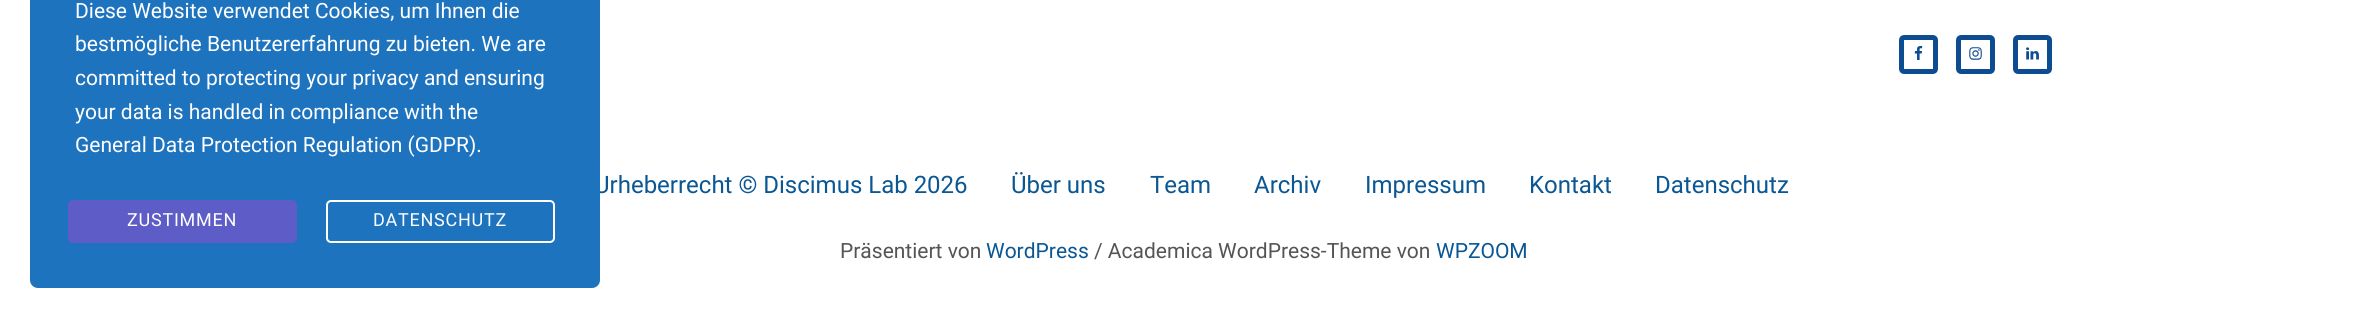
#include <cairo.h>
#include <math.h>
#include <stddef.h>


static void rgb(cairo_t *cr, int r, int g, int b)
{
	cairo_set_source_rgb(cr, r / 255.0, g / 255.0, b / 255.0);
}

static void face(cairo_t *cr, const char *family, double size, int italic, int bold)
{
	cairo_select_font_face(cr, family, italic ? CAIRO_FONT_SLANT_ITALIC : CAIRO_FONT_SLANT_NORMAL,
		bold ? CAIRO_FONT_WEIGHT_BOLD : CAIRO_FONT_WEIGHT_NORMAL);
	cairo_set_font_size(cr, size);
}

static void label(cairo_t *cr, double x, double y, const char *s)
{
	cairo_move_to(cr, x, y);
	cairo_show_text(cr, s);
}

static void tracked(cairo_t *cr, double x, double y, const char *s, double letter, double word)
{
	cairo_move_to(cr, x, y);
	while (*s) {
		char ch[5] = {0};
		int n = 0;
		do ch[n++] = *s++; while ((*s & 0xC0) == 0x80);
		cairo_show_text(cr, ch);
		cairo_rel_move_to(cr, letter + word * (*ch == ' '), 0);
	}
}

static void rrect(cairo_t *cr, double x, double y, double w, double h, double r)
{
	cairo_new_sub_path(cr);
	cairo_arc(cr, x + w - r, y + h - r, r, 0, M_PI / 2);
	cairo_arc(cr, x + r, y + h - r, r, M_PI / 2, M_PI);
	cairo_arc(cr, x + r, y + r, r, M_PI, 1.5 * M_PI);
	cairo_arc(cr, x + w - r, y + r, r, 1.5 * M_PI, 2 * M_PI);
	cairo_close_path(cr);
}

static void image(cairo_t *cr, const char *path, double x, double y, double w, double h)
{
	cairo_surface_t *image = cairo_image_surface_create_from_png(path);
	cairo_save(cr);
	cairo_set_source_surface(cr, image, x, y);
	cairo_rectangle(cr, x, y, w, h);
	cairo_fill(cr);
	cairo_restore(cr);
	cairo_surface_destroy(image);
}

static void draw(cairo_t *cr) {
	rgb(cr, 255, 255, 255);
	cairo_paint(cr);
	face(cr, "Roboto", 24, 0, 0);
	rgb(cr, 10, 87, 148);
	label(cr, 594, 193, "Urheberrecht © Discimus Lab 2026");
	rgb(cr, 30, 115, 190);
	rrect(cr, 30, -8, 570, 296, 8);
	cairo_fill(cr);
	face(cr, "Roboto", 21, 0, 0);
	rgb(cr, 255, 255, 255);
	label(cr, 75, 18, "Diese Website verwendet Cookies, um Ihnen die");
	label(cr, 75, 51, "bestmögliche Benutzererfahrung zu bieten. We are");
	label(cr, 75, 85, "committed to protecting your privacy and ensuring");
	label(cr, 75, 119, "your data is handled in compliance with the");
	label(cr, 75, 152, "General Data Protection Regulation (GDPR).");
	rgb(cr, 94, 92, 199);
	rrect(cr, 69, 201, 227, 41, 4);
	cairo_fill_preserve(cr);
	cairo_stroke(cr);
	face(cr, "Roboto", 18, 0, 0);
	rgb(cr, 255, 255, 255);
	tracked(cr, 127, 226, "ZUSTIMMEN", 0.75, 0);
	rrect(cr, 327, 201, 227, 41, 4);
	cairo_stroke(cr);
	tracked(cr, 373, 226, "DATENSCHUTZ", 0.75, 0);
	rrect(cr, 1901.5, 37.5, 34, 34, 2.5);
	rgb(cr, 14, 76, 146);
	cairo_set_line_width(cr, 5);
	cairo_stroke(cr);
	image(cr, "image0.png", 1914, 46, 9, 14);
	rrect(cr, 1958.5, 37.5, 34, 34, 2.5);
	cairo_stroke(cr);
	image(cr, "image1.png", 1969, 47, 13, 13);
	rrect(cr, 2015.5, 37.5, 34, 34, 2.5);
	cairo_stroke(cr);
	image(cr, "image2.png", 2026, 47, 13, 13);
	face(cr, "Roboto", 24, 0, 0);
	rgb(cr, 10, 87, 148);
	label(cr, 1011, 193, "Über uns");
	label(cr, 1150, 193, "Team");
	label(cr, 1254, 193, "Archiv");
	label(cr, 1365, 193, "Impressum");
	label(cr, 1529, 193, "Kontakt");
	label(cr, 1655, 193, "Datenschutz");
	face(cr, "Roboto", 21, 0, 0);
	rgb(cr, 85, 85, 85);
	label(cr, 840, 258, "Präsentiert von");
	rgb(cr, 10, 87, 148);
	label(cr, 986, 258, "WordPress");
	rgb(cr, 85, 85, 85);
	label(cr, 1094, 258, "/ Academica WordPress-Theme von");
	rgb(cr, 10, 87, 148);
	label(cr, 1436, 258, "WPZOOM");
}

int main(void) {
	cairo_surface_t *surface = cairo_image_surface_create(CAIRO_FORMAT_RGB24, 2367, 317);
	cairo_t *cr = cairo_create(surface);
	cairo_font_options_t *options = cairo_font_options_create();
	cairo_font_options_set_hint_metrics(options, CAIRO_HINT_METRICS_OFF);
	cairo_font_options_set_hint_style(options, CAIRO_HINT_STYLE_NONE);
	cairo_set_font_options(cr, options);
	cairo_set_miter_limit(cr, 4);
	draw(cr);
	cairo_surface_write_to_png(surface, "render.png");
	cairo_font_options_destroy(options);
	cairo_destroy(cr);
	cairo_surface_destroy(surface);
	return 0;
}
